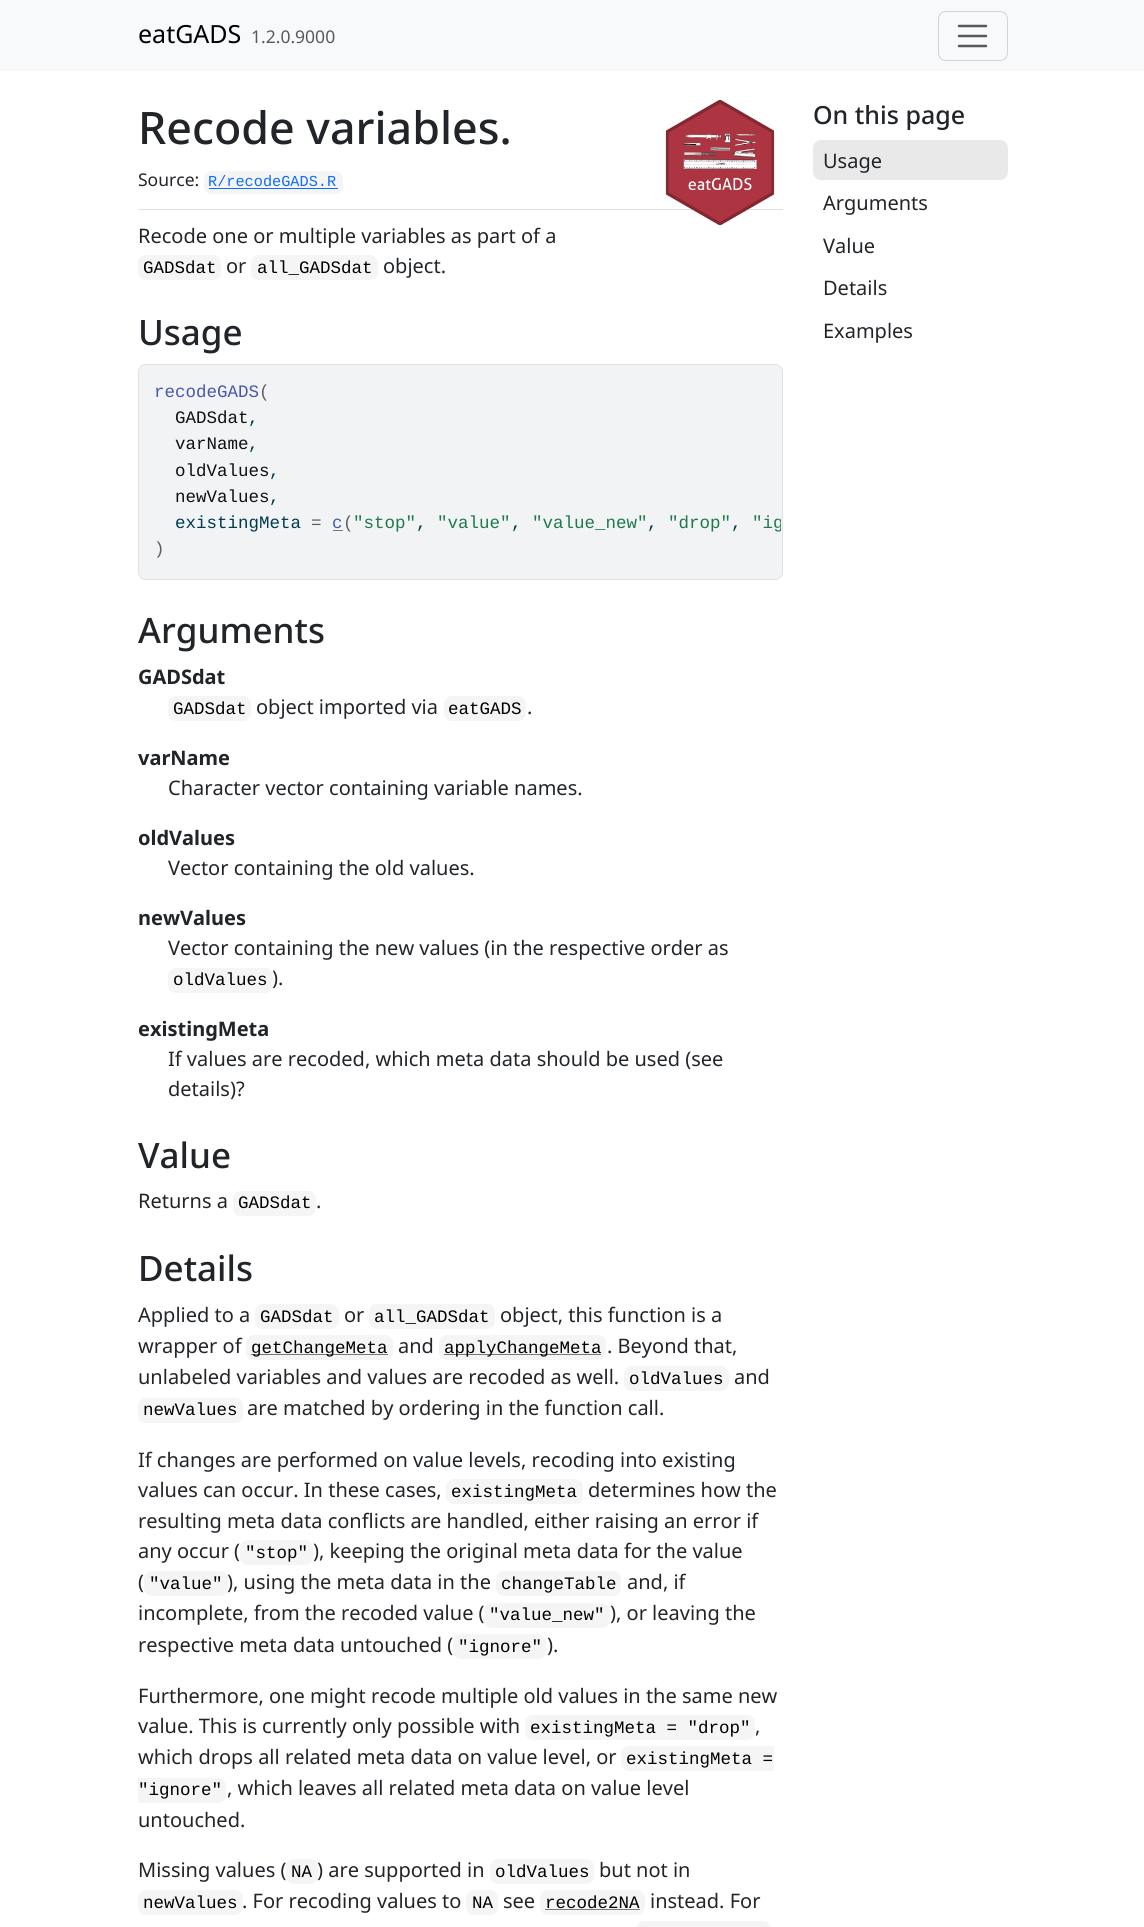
#include <cairo.h>
#include <math.h>
#include <stddef.h>


static void rgb(cairo_t *cr, int r, int g, int b)
{
	cairo_set_source_rgb(cr, r / 255.0, g / 255.0, b / 255.0);
}

static void face(cairo_t *cr, const char *family, double size, int italic, int bold)
{
	cairo_select_font_face(cr, family, italic ? CAIRO_FONT_SLANT_ITALIC : CAIRO_FONT_SLANT_NORMAL,
		bold ? CAIRO_FONT_WEIGHT_BOLD : CAIRO_FONT_WEIGHT_NORMAL);
	cairo_set_font_size(cr, size);
}

static void label(cairo_t *cr, double x, double y, const char *s)
{
	cairo_move_to(cr, x, y);
	cairo_show_text(cr, s);
}

static void rect(cairo_t *cr, double x, double y, double w, double h)
{
	cairo_rectangle(cr, x, y, w, h);
	cairo_fill(cr);
}

static void rrect(cairo_t *cr, double x, double y, double w, double h, double r)
{
	cairo_new_sub_path(cr);
	cairo_arc(cr, x + w - r, y + h - r, r, 0, M_PI / 2);
	cairo_arc(cr, x + r, y + h - r, r, M_PI / 2, M_PI);
	cairo_arc(cr, x + r, y + r, r, M_PI, 1.5 * M_PI);
	cairo_arc(cr, x + w - r, y + r, r, 1.5 * M_PI, 2 * M_PI);
	cairo_close_path(cr);
}

static void image(cairo_t *cr, const char *path, double x, double y, double w, double h)
{
	cairo_surface_t *image = cairo_image_surface_create_from_png(path);
	cairo_save(cr);
	cairo_set_source_surface(cr, image, x, y);
	cairo_rectangle(cr, x, y, w, h);
	cairo_fill(cr);
	cairo_restore(cr);
	cairo_surface_destroy(image);
}

static void draw(cairo_t *cr) {
	rgb(cr, 255, 255, 255);
	cairo_paint(cr);
	rgb(cr, 248, 249, 250);
	rect(cr, 0, 0, 1144, 71);
	face(cr, "Noto Sans", 25, 0, 0);
	rgb(cr, 0, 0, 0);
	label(cr, 138, 43, "eatGADS");
	face(cr, "Noto Sans", 17.5, 0, 0);
	rgb(cr, 87, 90, 93);
	label(cr, 251, 43, "1.2.0.9000");
	rrect(cr, 938.5, 11.5, 69, 49, 7.5);
	rgb(cr, 211, 212, 213);
	cairo_set_line_width(cr, 1);
	cairo_stroke(cr);
	cairo_new_path(cr);
	cairo_move_to(cr, 959, 26);
	cairo_line_to(cr, 986, 26);
	cairo_move_to(cr, 959, 36);
	cairo_line_to(cr, 986, 36);
	cairo_move_to(cr, 959, 46);
	cairo_line_to(cr, 986, 46);
	rgb(cr, 87, 90, 93);
	cairo_set_line_width(cr, 2.5);
	cairo_set_line_cap(cr, CAIRO_LINE_CAP_ROUND);
	cairo_stroke(cr);
	rgb(cr, 222, 226, 230);
	rect(cr, 138, 209, 645, 1);
	face(cr, "Noto Sans Medium", 44.75, 0, 0);
	rgb(cr, 33, 37, 41);
	label(cr, 138, 144, "Recode variables.");
	image(cr, "image0.png", 665, 100, 110, 125);
	face(cr, "Noto Sans", 17.5, 0, 0);
	label(cr, 138, 186, "Source:");
	rgb(cr, 245, 245, 245);
	rrect(cr, 204, 171, 139, 23, 8);
	cairo_fill(cr);
	face(cr, "Liberation Mono", 15.25, 0, 0);
	rgb(cr, 13, 110, 253);
	label(cr, 208, 186, "R/recodeGADS.R");
	rect(cr, 209, 188, 129, 1);
	face(cr, "Noto Sans", 20, 0, 0);
	rgb(cr, 33, 37, 41);
	label(cr, 138, 243, "Recode one or multiple variables as part of a");
	rgb(cr, 245, 245, 245);
	rrect(cr, 138, 255, 83, 25, 8);
	cairo_fill(cr);
	face(cr, "Liberation Mono", 17.5, 0, 0);
	rgb(cr, 0, 0, 0);
	label(cr, 143, 273, "GADSdat");
	face(cr, "Noto Sans", 20, 0, 0);
	rgb(cr, 33, 37, 41);
	label(cr, 226, 273, "or");
	rgb(cr, 245, 245, 245);
	rrect(cr, 251, 255, 127, 25, 8);
	cairo_fill(cr);
	face(cr, "Liberation Mono", 17.5, 0, 0);
	rgb(cr, 0, 0, 0);
	label(cr, 257, 273, "all_GADSdat");
	face(cr, "Noto Sans", 20, 0, 0);
	rgb(cr, 33, 37, 41);
	label(cr, 383, 273, "object.");
	face(cr, "Noto Sans Medium", 35, 0, 0);
	label(cr, 138, 345, "Usage");
	rgb(cr, 241, 243, 245);
	rrect(cr, 138.5, 364.5, 644, 215, 7.5);
	cairo_fill_preserve(cr);
	rgb(cr, 222, 226, 230);
	cairo_set_line_width(cr, 1);
	cairo_set_line_cap(cr, CAIRO_LINE_CAP_BUTT);
	cairo_stroke(cr);
	face(cr, "Liberation Mono", 17.5, 0, 0);
	rgb(cr, 71, 88, 171);
	label(cr, 154, 397, "recodeGADS");
	rgb(cr, 94, 94, 94);
	label(cr, 259, 397, "(");
	rgb(cr, 17, 17, 17);
	label(cr, 175, 423, "GADSdat");
	rgb(cr, 0, 59, 79);
	label(cr, 248, 423, ",");
	rgb(cr, 17, 17, 17);
	label(cr, 175, 449, "varName");
	rgb(cr, 0, 59, 79);
	label(cr, 248, 449, ",");
	rgb(cr, 17, 17, 17);
	label(cr, 175, 476, "oldValues");
	rgb(cr, 0, 59, 79);
	label(cr, 269, 476, ",");
	rgb(cr, 17, 17, 17);
	label(cr, 175, 502, "newValues");
	rgb(cr, 0, 59, 79);
	label(cr, 269, 502, ",");
	label(cr, 175, 528, "existingMeta");
	rgb(cr, 94, 94, 94);
	label(cr, 311, 528, "=");
	rgb(cr, 71, 88, 171);
	label(cr, 332, 528, "c");
	rgb(cr, 116, 119, 123);
	rect(cr, 333, 530, 10, 1);
	rgb(cr, 94, 94, 94);
	label(cr, 343, 528, "(");
	rgb(cr, 32, 121, 77);
	label(cr, 353, 528, "\"stop\"");
	label(cr, 437, 528, "\"value\"");
	label(cr, 532, 528, "\"value_new\"");
	label(cr, 668, 528, "\"drop\"");
	cairo_save(cr);
	rrect(cr, 139, 365, 642, 214, 6);
	cairo_clip(cr);
	label(cr, 752, 528, "\"ig");
	cairo_restore(cr);
	rgb(cr, 0, 59, 79);
	label(cr, 416, 528, ",");
	label(cr, 511, 528, ",");
	label(cr, 647, 528, ",");
	label(cr, 731, 528, ",");
	rgb(cr, 94, 94, 94);
	label(cr, 154, 554, ")");
	face(cr, "Noto Sans Medium", 35, 0, 0);
	rgb(cr, 33, 37, 41);
	label(cr, 138, 643, "Arguments");
	face(cr, "Noto Sans", 20, 0, 1);
	label(cr, 138, 684, "GADSdat");
	rgb(cr, 245, 245, 245);
	rrect(cr, 168, 696, 83, 25, 8);
	cairo_fill(cr);
	face(cr, "Liberation Mono", 17.5, 0, 0);
	rgb(cr, 0, 0, 0);
	label(cr, 173, 714, "GADSdat");
	face(cr, "Noto Sans", 20, 0, 0);
	rgb(cr, 33, 37, 41);
	label(cr, 256, 714, "object imported via");
	rgb(cr, 245, 245, 245);
	rrect(cr, 444, 696, 82, 25, 8);
	cairo_fill(cr);
	face(cr, "Liberation Mono", 17.5, 0, 0);
	rgb(cr, 0, 0, 0);
	label(cr, 448, 714, "eatGADS");
	face(cr, "Noto Sans", 20, 0, 0);
	rgb(cr, 33, 37, 41);
	label(cr, 527, 714, ".");
	face(cr, "Noto Sans", 20, 0, 1);
	label(cr, 138, 765, "varName");
	face(cr, "Noto Sans", 20, 0, 0);
	label(cr, 168, 795, "Character vector containing variable names.");
	face(cr, "Noto Sans", 20, 0, 1);
	label(cr, 138, 845, "oldValues");
	face(cr, "Noto Sans", 20, 0, 0);
	label(cr, 168, 875, "Vector containing the old values.");
	face(cr, "Noto Sans", 20, 0, 1);
	label(cr, 138, 925, "newValues");
	face(cr, "Noto Sans", 20, 0, 0);
	label(cr, 168, 955, "Vector containing the new values (in the respective order as");
	rgb(cr, 245, 245, 245);
	rrect(cr, 168, 968, 105, 25, 8);
	cairo_fill(cr);
	face(cr, "Liberation Mono", 17.5, 0, 0);
	rgb(cr, 0, 0, 0);
	label(cr, 173, 985, "oldValues");
	face(cr, "Noto Sans", 20, 0, 0);
	rgb(cr, 33, 37, 41);
	label(cr, 272, 985, ").");
	face(cr, "Noto Sans", 20, 0, 1);
	label(cr, 138, 1036, "existingMeta");
	face(cr, "Noto Sans", 20, 0, 0);
	label(cr, 168, 1066, "If values are recoded, which meta data should be used (see");
	label(cr, 168, 1096, "details)?");
	face(cr, "Noto Sans Medium", 35, 0, 0);
	label(cr, 138, 1168, "Value");
	face(cr, "Noto Sans", 20, 0, 0);
	label(cr, 138, 1208, "Returns a");
	rgb(cr, 245, 245, 245);
	rrect(cr, 233, 1191, 83, 25, 8);
	cairo_fill(cr);
	face(cr, "Liberation Mono", 17.5, 0, 0);
	rgb(cr, 0, 0, 0);
	label(cr, 238, 1208, "GADSdat");
	face(cr, "Noto Sans", 20, 0, 0);
	rgb(cr, 33, 37, 41);
	label(cr, 316, 1208, ".");
	face(cr, "Noto Sans Medium", 35, 0, 0);
	label(cr, 138, 1281, "Details");
	face(cr, "Noto Sans", 20, 0, 0);
	label(cr, 138, 1322, "Applied to a");
	rgb(cr, 245, 245, 245);
	rrect(cr, 255, 1304, 84, 25, 8);
	cairo_fill(cr);
	face(cr, "Liberation Mono", 17.5, 0, 0);
	rgb(cr, 0, 0, 0);
	label(cr, 260, 1322, "GADSdat");
	face(cr, "Noto Sans", 20, 0, 0);
	rgb(cr, 33, 37, 41);
	label(cr, 344, 1322, "or");
	rgb(cr, 245, 245, 245);
	rrect(cr, 369, 1304, 126, 25, 8);
	cairo_fill(cr);
	face(cr, "Liberation Mono", 17.5, 0, 0);
	rgb(cr, 0, 0, 0);
	label(cr, 374, 1322, "all_GADSdat");
	face(cr, "Noto Sans", 20, 0, 0);
	rgb(cr, 33, 37, 41);
	label(cr, 500, 1322, "object, this function is a");
	label(cr, 138, 1353, "wrapper of");
	rgb(cr, 245, 245, 245);
	rrect(cr, 246, 1335, 147, 25, 8);
	cairo_fill(cr);
	rgb(cr, 118, 120, 123);
	rect(cr, 251, 1354, 137, 1);
	face(cr, "Liberation Mono", 17.5, 0, 0);
	rgb(cr, 0, 0, 0);
	label(cr, 251, 1353, "getChangeMeta");
	face(cr, "Noto Sans", 20, 0, 0);
	rgb(cr, 33, 37, 41);
	label(cr, 398, 1353, "and");
	rgb(cr, 245, 245, 245);
	rrect(cr, 439, 1335, 167, 25, 8);
	cairo_fill(cr);
	rgb(cr, 118, 120, 123);
	rect(cr, 444, 1354, 157, 1);
	face(cr, "Liberation Mono", 17.5, 0, 0);
	rgb(cr, 0, 0, 0);
	label(cr, 444, 1353, "applyChangeMeta");
	face(cr, "Noto Sans", 20, 0, 0);
	rgb(cr, 33, 37, 41);
	label(cr, 607, 1353, ". Beyond that,");
	label(cr, 138, 1384, "unlabeled variables and values are recoded as well.");
	rgb(cr, 245, 245, 245);
	rrect(cr, 624, 1366, 105, 25, 8);
	cairo_fill(cr);
	face(cr, "Liberation Mono", 17.5, 0, 0);
	rgb(cr, 0, 0, 0);
	label(cr, 629, 1384, "oldValues");
	face(cr, "Noto Sans", 20, 0, 0);
	rgb(cr, 33, 37, 41);
	label(cr, 734, 1384, "and");
	rgb(cr, 245, 245, 245);
	rrect(cr, 138, 1398, 105, 25, 8);
	cairo_fill(cr);
	face(cr, "Liberation Mono", 17.5, 0, 0);
	rgb(cr, 0, 0, 0);
	label(cr, 143, 1415, "newValues");
	face(cr, "Noto Sans", 20, 0, 0);
	rgb(cr, 33, 37, 41);
	label(cr, 247, 1415, "are matched by ordering in the function call.");
	label(cr, 138, 1467, "If changes are performed on value levels, recoding into existing");
	label(cr, 138, 1497, "values can occur. In these cases,");
	rgb(cr, 245, 245, 245);
	rrect(cr, 446, 1479, 137, 25, 8);
	cairo_fill(cr);
	face(cr, "Liberation Mono", 17.5, 0, 0);
	rgb(cr, 0, 0, 0);
	label(cr, 451, 1497, "existingMeta");
	face(cr, "Noto Sans", 20, 0, 0);
	rgb(cr, 33, 37, 41);
	label(cr, 588, 1497, "determines how the");
	label(cr, 138, 1528, "resulting meta data conflicts are handled, either raising an error if");
	label(cr, 138, 1558, "any occur (");
	rgb(cr, 245, 245, 245);
	rrect(cr, 240, 1540, 73, 25, 8);
	cairo_fill(cr);
	face(cr, "Liberation Mono", 17.5, 0, 0);
	rgb(cr, 0, 0, 0);
	label(cr, 245, 1558, "\"stop\"");
	face(cr, "Noto Sans", 20, 0, 0);
	rgb(cr, 33, 37, 41);
	label(cr, 313, 1558, "), keeping the original meta data for the value");
	label(cr, 138, 1589, "(");
	rgb(cr, 245, 245, 245);
	rrect(cr, 144, 1571, 84, 25, 8);
	cairo_fill(cr);
	face(cr, "Liberation Mono", 17.5, 0, 0);
	rgb(cr, 0, 0, 0);
	label(cr, 149, 1589, "\"value\"");
	face(cr, "Noto Sans", 20, 0, 0);
	rgb(cr, 33, 37, 41);
	label(cr, 227, 1589, "), using the meta data in the");
	rgb(cr, 245, 245, 245);
	rrect(cr, 496, 1571, 125, 25, 8);
	cairo_fill(cr);
	face(cr, "Liberation Mono", 17.5, 0, 0);
	rgb(cr, 0, 0, 0);
	label(cr, 501, 1589, "changeTable");
	face(cr, "Noto Sans", 20, 0, 0);
	rgb(cr, 33, 37, 41);
	label(cr, 627, 1589, "and, if");
	label(cr, 138, 1620, "incomplete, from the recoded value (");
	rgb(cr, 245, 245, 245);
	rrect(cr, 484, 1603, 126, 25, 8);
	cairo_fill(cr);
	face(cr, "Liberation Mono", 17.5, 0, 0);
	rgb(cr, 0, 0, 0);
	label(cr, 489, 1620, "\"value_new\"");
	face(cr, "Noto Sans", 20, 0, 0);
	rgb(cr, 33, 37, 41);
	label(cr, 610, 1620, "), or leaving the");
	label(cr, 138, 1652, "respective meta data untouched (");
	rgb(cr, 245, 245, 245);
	rrect(cr, 453, 1634, 93, 25, 8);
	cairo_fill(cr);
	face(cr, "Liberation Mono", 17.5, 0, 0);
	rgb(cr, 0, 0, 0);
	label(cr, 458, 1652, "\"ignore\"");
	face(cr, "Noto Sans", 20, 0, 0);
	rgb(cr, 33, 37, 41);
	label(cr, 547, 1652, ").");
	label(cr, 138, 1703, "Furthermore, one might recode multiple old values in the same new");
	label(cr, 138, 1733, "value. This is currently only possible with");
	rgb(cr, 245, 245, 245);
	rrect(cr, 525, 1715, 230, 25, 8);
	cairo_fill(cr);
	face(cr, "Liberation Mono", 17.5, 0, 0);
	rgb(cr, 0, 0, 0);
	label(cr, 530, 1733, "existingMeta = \"drop\"");
	face(cr, "Noto Sans", 20, 0, 0);
	rgb(cr, 33, 37, 41);
	label(cr, 755, 1733, ",");
	label(cr, 138, 1764, "which drops all related meta data on value level, or");
	rgb(cr, 245, 245, 245);
	cairo_new_path(cr);
	cairo_move_to(cr, 629, 1746);
	cairo_line_to(cr, 774, 1746);
	cairo_line_to(cr, 774, 1771);
	cairo_line_to(cr, 629, 1771);
	cairo_curve_to(cr, 624.5, 1771, 621, 1767.5, 621, 1763);
	cairo_line_to(cr, 621, 1754);
	cairo_curve_to(cr, 621, 1749.5, 624.5, 1746, 629, 1746);
	cairo_close_path(cr);
	cairo_fill(cr);
	face(cr, "Liberation Mono", 17.5, 0, 0);
	rgb(cr, 0, 0, 0);
	label(cr, 626, 1764, "existingMeta =");
	rgb(cr, 245, 245, 245);
	cairo_new_path(cr);
	cairo_move_to(cr, 138, 1778);
	cairo_line_to(cr, 218, 1778);
	cairo_curve_to(cr, 222.5, 1778, 226, 1781.5, 226, 1786);
	cairo_line_to(cr, 226, 1795);
	cairo_curve_to(cr, 226, 1799.5, 222.5, 1803, 218, 1803);
	cairo_line_to(cr, 138, 1803);
	cairo_close_path(cr);
	cairo_fill(cr);
	rgb(cr, 0, 0, 0);
	label(cr, 138, 1795, "\"ignore\"");
	face(cr, "Noto Sans", 20, 0, 0);
	rgb(cr, 33, 37, 41);
	label(cr, 227, 1795, ", which leaves all related meta data on value level");
	label(cr, 138, 1827, "untouched.");
	label(cr, 138, 1877, "Missing values (");
	rgb(cr, 245, 245, 245);
	rrect(cr, 286, 1859, 32, 25, 8);
	cairo_fill(cr);
	face(cr, "Liberation Mono", 17.5, 0, 0);
	rgb(cr, 0, 0, 0);
	label(cr, 291, 1877, "NA");
	face(cr, "Noto Sans", 20, 0, 0);
	rgb(cr, 33, 37, 41);
	label(cr, 317, 1877, ") are supported in");
	rgb(cr, 245, 245, 245);
	rrect(cr, 490, 1859, 104, 25, 8);
	cairo_fill(cr);
	face(cr, "Liberation Mono", 17.5, 0, 0);
	rgb(cr, 0, 0, 0);
	label(cr, 495, 1877, "oldValues");
	face(cr, "Noto Sans", 20, 0, 0);
	rgb(cr, 33, 37, 41);
	label(cr, 599, 1877, "but not in");
	rgb(cr, 245, 245, 245);
	rrect(cr, 138, 1890, 105, 25, 8);
	cairo_fill(cr);
	face(cr, "Liberation Mono", 17.5, 0, 0);
	rgb(cr, 0, 0, 0);
	label(cr, 143, 1908, "newValues");
	face(cr, "Noto Sans", 20, 0, 0);
	rgb(cr, 33, 37, 41);
	label(cr, 242, 1908, ". For recoding values to");
	rgb(cr, 245, 245, 245);
	rrect(cr, 466, 1890, 32, 25, 8);
	cairo_fill(cr);
	face(cr, "Liberation Mono", 17.5, 0, 0);
	rgb(cr, 0, 0, 0);
	label(cr, 472, 1908, "NA");
	face(cr, "Noto Sans", 20, 0, 0);
	rgb(cr, 33, 37, 41);
	label(cr, 503, 1908, "see");
	rgb(cr, 245, 245, 245);
	rrect(cr, 540, 1890, 105, 25, 8);
	cairo_fill(cr);
	face(cr, "Liberation Mono", 17.5, 0, 0);
	rgb(cr, 0, 0, 0);
	label(cr, 545, 1908, "recode2NA");
	rgb(cr, 118, 120, 123);
	rect(cr, 545, 1909, 95, 1);
	face(cr, "Noto Sans", 20, 0, 0);
	rgb(cr, 33, 37, 41);
	label(cr, 650, 1908, "instead. For");
	rgb(cr, 245, 245, 245);
	rrect(cr, 636, 1921, 135, 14, 8);
	cairo_fill(cr);
	face(cr, "Noto Sans Medium", 25, 0, 0);
	rgb(cr, 33, 37, 41);
	label(cr, 813, 124, "On this page");
	rgb(cr, 233, 233, 234);
	rrect(cr, 813, 140, 195, 40, 8);
	cairo_fill(cr);
	face(cr, "Noto Sans", 20, 0, 0);
	rgb(cr, 33, 37, 41);
	label(cr, 823, 168, "Usage");
	label(cr, 823, 210, "Arguments");
	label(cr, 823, 253, "Value");
	label(cr, 823, 295, "Details");
	label(cr, 823, 338, "Examples");
}

int main(void) {
	cairo_surface_t *surface = cairo_image_surface_create(CAIRO_FORMAT_RGB24, 1144, 1927);
	cairo_t *cr = cairo_create(surface);
	cairo_font_options_t *options = cairo_font_options_create();
	cairo_font_options_set_hint_metrics(options, CAIRO_HINT_METRICS_OFF);
	cairo_font_options_set_hint_style(options, CAIRO_HINT_STYLE_NONE);
	cairo_set_font_options(cr, options);
	cairo_set_miter_limit(cr, 4);
	draw(cr);
	cairo_surface_write_to_png(surface, "render.png");
	cairo_font_options_destroy(options);
	cairo_destroy(cr);
	cairo_surface_destroy(surface);
	return 0;
}
